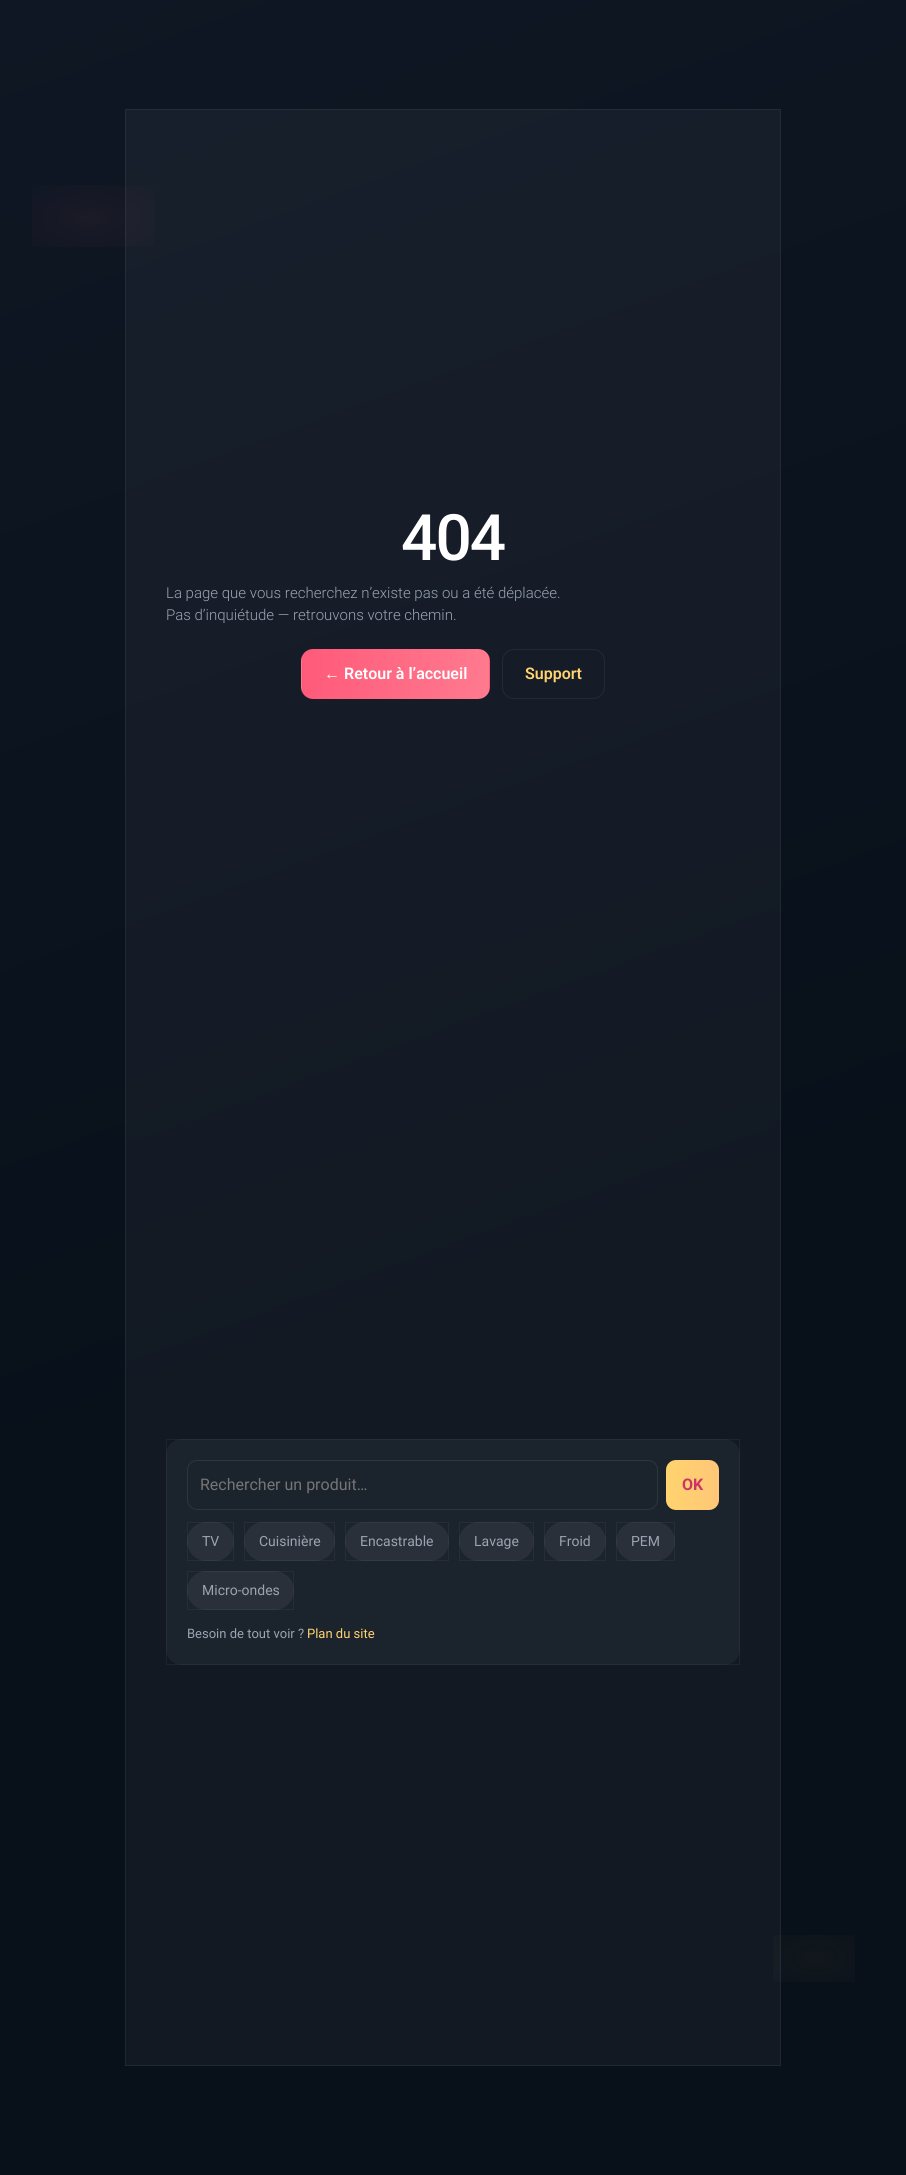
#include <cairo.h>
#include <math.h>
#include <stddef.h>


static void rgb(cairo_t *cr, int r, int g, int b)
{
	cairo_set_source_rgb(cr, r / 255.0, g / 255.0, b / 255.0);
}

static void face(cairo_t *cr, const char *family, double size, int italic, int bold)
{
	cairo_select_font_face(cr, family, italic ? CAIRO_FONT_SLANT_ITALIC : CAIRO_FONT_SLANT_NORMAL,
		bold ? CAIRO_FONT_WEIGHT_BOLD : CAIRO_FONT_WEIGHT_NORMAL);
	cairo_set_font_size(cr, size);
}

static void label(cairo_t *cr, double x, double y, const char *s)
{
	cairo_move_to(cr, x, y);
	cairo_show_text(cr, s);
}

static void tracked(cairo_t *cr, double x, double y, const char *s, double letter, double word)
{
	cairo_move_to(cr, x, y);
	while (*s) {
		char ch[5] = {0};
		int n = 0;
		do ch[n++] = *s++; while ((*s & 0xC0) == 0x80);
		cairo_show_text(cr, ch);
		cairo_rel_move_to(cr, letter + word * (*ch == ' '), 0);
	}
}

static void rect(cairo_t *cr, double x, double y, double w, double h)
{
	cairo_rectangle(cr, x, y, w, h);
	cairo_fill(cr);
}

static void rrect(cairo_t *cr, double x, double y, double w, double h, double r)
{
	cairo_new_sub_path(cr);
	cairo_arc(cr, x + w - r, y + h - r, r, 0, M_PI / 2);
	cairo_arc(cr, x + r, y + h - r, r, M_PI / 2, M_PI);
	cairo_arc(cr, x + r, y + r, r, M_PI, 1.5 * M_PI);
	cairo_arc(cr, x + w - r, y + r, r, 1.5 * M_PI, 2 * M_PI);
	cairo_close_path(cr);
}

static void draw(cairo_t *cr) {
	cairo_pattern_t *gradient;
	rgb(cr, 255, 255, 255);
	cairo_paint(cr);
	gradient = cairo_pattern_create_linear(50, -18, 856, 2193);
	cairo_pattern_add_color_stop_rgba(gradient, 0, 0.059, 0.09, 0.141, 1);
	cairo_pattern_add_color_stop_rgba(gradient, 0.6, 0.031, 0.063, 0.102, 1);
	cairo_set_source(cr, gradient);
	cairo_pattern_destroy(gradient);
	rect(cr, 0, 0, 906, 2175);
	gradient = cairo_pattern_create_radial(0, 0, 0, 0, 0, 1);
	cairo_pattern_set_matrix(gradient, &(cairo_matrix_t){1.0 / 900, 0, 0, 1.0 / 500, -1.0 * 815 / 900, -1.0 * 1958 / 500});
	cairo_pattern_add_color_stop_rgba(gradient, 0, 1, 0.827, 0.431, 0.04);
	cairo_pattern_add_color_stop_rgba(gradient, 0.1, 1, 0.827, 0.431, 0);
	cairo_set_source(cr, gradient);
	cairo_pattern_destroy(gradient);
	rect(cr, 773, 1935, 82, 47);
	gradient = cairo_pattern_create_radial(0, 0, 0, 0, 0, 1);
	cairo_pattern_set_matrix(gradient, &(cairo_matrix_t){1.0 / 1200, 0, 0, 1.0 / 600, -1.0 * 91 / 1200, -1.0 * 218 / 600});
	cairo_pattern_add_color_stop_rgba(gradient, 0, 1, 0.353, 0.478, 0.06);
	cairo_pattern_add_color_stop_rgba(gradient, 0.08, 1, 0.353, 0.478, 0);
	cairo_set_source(cr, gradient);
	cairo_pattern_destroy(gradient);
	rect(cr, 32, 185, 123, 62);
	cairo_set_source_rgba(cr, 1, 1, 1, 0.04);
	rect(cr, 125, 109, 656, 1957);
	cairo_rectangle(cr, 125.5, 109.5, 655, 1956);
	cairo_set_source_rgba(cr, 1, 1, 1, 0.06);
	cairo_set_line_width(cr, 1);
	cairo_stroke(cr);
	face(cr, "Roboto Medium", 64, 0, 0);
	rgb(cr, 255, 255, 255);
	tracked(cr, 401, 560, "404", -2, 0);
	face(cr, "Roboto Light", 15, 0, 0);
	rgb(cr, 154, 164, 178);
	label(cr, 166, 598, "La page que vous recherchez n’existe pas ou a été déplacée.");
	label(cr, 166, 620, "Pas d’inquiétude — retrouvons votre chemin.");
	cairo_save(cr);
	rrect(cr, 301, 649, 189, 50, 12);
	cairo_clip(cr);
	gradient = cairo_pattern_create_linear(115, 674, 302, 674);
	cairo_pattern_add_color_stop_rgba(gradient, 0, 1, 0.353, 0.478, 1);
	cairo_pattern_add_color_stop_rgba(gradient, 1, 1, 0.478, 0.561, 1);
	cairo_set_source(cr, gradient);
	cairo_pattern_destroy(gradient);
	rect(cr, 301, 649, 1, 50);
	gradient = cairo_pattern_create_linear(302, 674, 489, 674);
	cairo_pattern_add_color_stop_rgba(gradient, 0, 1, 0.353, 0.478, 1);
	cairo_pattern_add_color_stop_rgba(gradient, 1, 1, 0.478, 0.561, 1);
	cairo_set_source(cr, gradient);
	cairo_pattern_destroy(gradient);
	rect(cr, 302, 649, 187, 50);
	gradient = cairo_pattern_create_linear(489, 674, 676, 674);
	cairo_pattern_add_color_stop_rgba(gradient, 0, 1, 0.353, 0.478, 1);
	cairo_pattern_add_color_stop_rgba(gradient, 1, 1, 0.478, 0.561, 1);
	cairo_set_source(cr, gradient);
	cairo_pattern_destroy(gradient);
	rect(cr, 489, 649, 1, 50);
	cairo_restore(cr);
	face(cr, "Liberation Sans", 16, 0, 1);
	rgb(cr, 255, 255, 255);
	label(cr, 324, 679, "←");
	face(cr, "Roboto SemiBold", 16, 0, 0);
	label(cr, 344, 679, "Retour à l’accueil");
	rrect(cr, 502.5, 649.5, 102, 49, 11.5);
	rgb(cr, 35, 42, 52);
	cairo_stroke(cr);
	rgb(cr, 255, 211, 110);
	label(cr, 525, 679, "Support");
	rgb(cr, 27, 35, 44);
	rrect(cr, 166, 1439, 574, 226, 16);
	cairo_fill(cr);
	cairo_rectangle(cr, 166.5, 1439.5, 573, 225);
	cairo_set_source_rgba(cr, 1, 1, 1, 0.05);
	cairo_stroke(cr);
	rrect(cr, 187.5, 1460.5, 470, 49, 9.5);
	rgb(cr, 45, 53, 61);
	cairo_stroke(cr);
	face(cr, "Roboto", 16, 0, 0);
	rgb(cr, 117, 117, 117);
	label(cr, 200, 1490, "Rechercher un produit…");
	gradient = cairo_pattern_create_linear(666, 1485, 719, 1485);
	cairo_pattern_add_color_stop_rgba(gradient, 0, 1, 0.827, 0.431, 1);
	cairo_pattern_add_color_stop_rgba(gradient, 1, 1, 0.78, 0.467, 1);
	cairo_set_source(cr, gradient);
	cairo_pattern_destroy(gradient);
	rrect(cr, 666, 1460, 53, 50, 10);
	cairo_fill(cr);
	face(cr, "Roboto", 16, 0, 1);
	rgb(cr, 204, 51, 102);
	label(cr, 682, 1490, "OK");
	rgb(cr, 41, 48, 57);
	rrect(cr, 187, 1522, 47, 39, 19.5);
	cairo_fill(cr);
	cairo_rectangle(cr, 187.5, 1522.5, 46, 38);
	cairo_set_source_rgba(cr, 1, 1, 1, 0.05);
	cairo_stroke(cr);
	face(cr, "Roboto", 14, 0, 0);
	rgb(cr, 154, 164, 178);
	label(cr, 202, 1546, "TV");
	rgb(cr, 41, 48, 57);
	rrect(cr, 244, 1522, 91, 39, 19.5);
	cairo_fill(cr);
	cairo_rectangle(cr, 244.5, 1522.5, 90, 38);
	cairo_set_source_rgba(cr, 1, 1, 1, 0.05);
	cairo_stroke(cr);
	rgb(cr, 154, 164, 178);
	label(cr, 259, 1546, "Cuisinière");
	rgb(cr, 41, 48, 57);
	rrect(cr, 345, 1522, 104, 39, 19.5);
	cairo_fill(cr);
	cairo_rectangle(cr, 345.5, 1522.5, 103, 38);
	cairo_set_source_rgba(cr, 1, 1, 1, 0.05);
	cairo_stroke(cr);
	rgb(cr, 154, 164, 178);
	label(cr, 360, 1546, "Encastrable");
	rgb(cr, 41, 48, 57);
	rrect(cr, 459, 1522, 75, 39, 19.5);
	cairo_fill(cr);
	cairo_rectangle(cr, 459.5, 1522.5, 74, 38);
	cairo_set_source_rgba(cr, 1, 1, 1, 0.05);
	cairo_stroke(cr);
	rgb(cr, 154, 164, 178);
	label(cr, 474, 1546, "Lavage");
	rgb(cr, 41, 48, 57);
	rrect(cr, 544, 1522, 62, 39, 19.5);
	cairo_fill(cr);
	cairo_rectangle(cr, 544.5, 1522.5, 61, 38);
	cairo_set_source_rgba(cr, 1, 1, 1, 0.05);
	cairo_stroke(cr);
	rgb(cr, 154, 164, 178);
	label(cr, 559, 1546, "Froid");
	rgb(cr, 41, 48, 57);
	rrect(cr, 616, 1522, 59, 39, 19.5);
	cairo_fill(cr);
	cairo_rectangle(cr, 616.5, 1522.5, 58, 38);
	cairo_set_source_rgba(cr, 1, 1, 1, 0.05);
	cairo_stroke(cr);
	rgb(cr, 154, 164, 178);
	label(cr, 631, 1546, "PEM");
	rgb(cr, 41, 48, 57);
	rrect(cr, 187, 1571, 107, 39, 19.5);
	cairo_fill(cr);
	cairo_rectangle(cr, 187.5, 1571.5, 106, 38);
	cairo_set_source_rgba(cr, 1, 1, 1, 0.05);
	cairo_stroke(cr);
	rgb(cr, 154, 164, 178);
	label(cr, 202, 1595, "Micro-ondes");
	face(cr, "Roboto", 13, 0, 0);
	label(cr, 187, 1638, "Besoin de tout voir ?");
	rgb(cr, 255, 211, 110);
	label(cr, 307, 1638, "Plan du site");
}

int main(void) {
	cairo_surface_t *surface = cairo_image_surface_create(CAIRO_FORMAT_RGB24, 906, 2175);
	cairo_t *cr = cairo_create(surface);
	cairo_font_options_t *options = cairo_font_options_create();
	cairo_font_options_set_hint_metrics(options, CAIRO_HINT_METRICS_OFF);
	cairo_font_options_set_hint_style(options, CAIRO_HINT_STYLE_NONE);
	cairo_set_font_options(cr, options);
	cairo_set_miter_limit(cr, 4);
	draw(cr);
	cairo_surface_write_to_png(surface, "render.png");
	cairo_font_options_destroy(options);
	cairo_destroy(cr);
	cairo_surface_destroy(surface);
	return 0;
}
